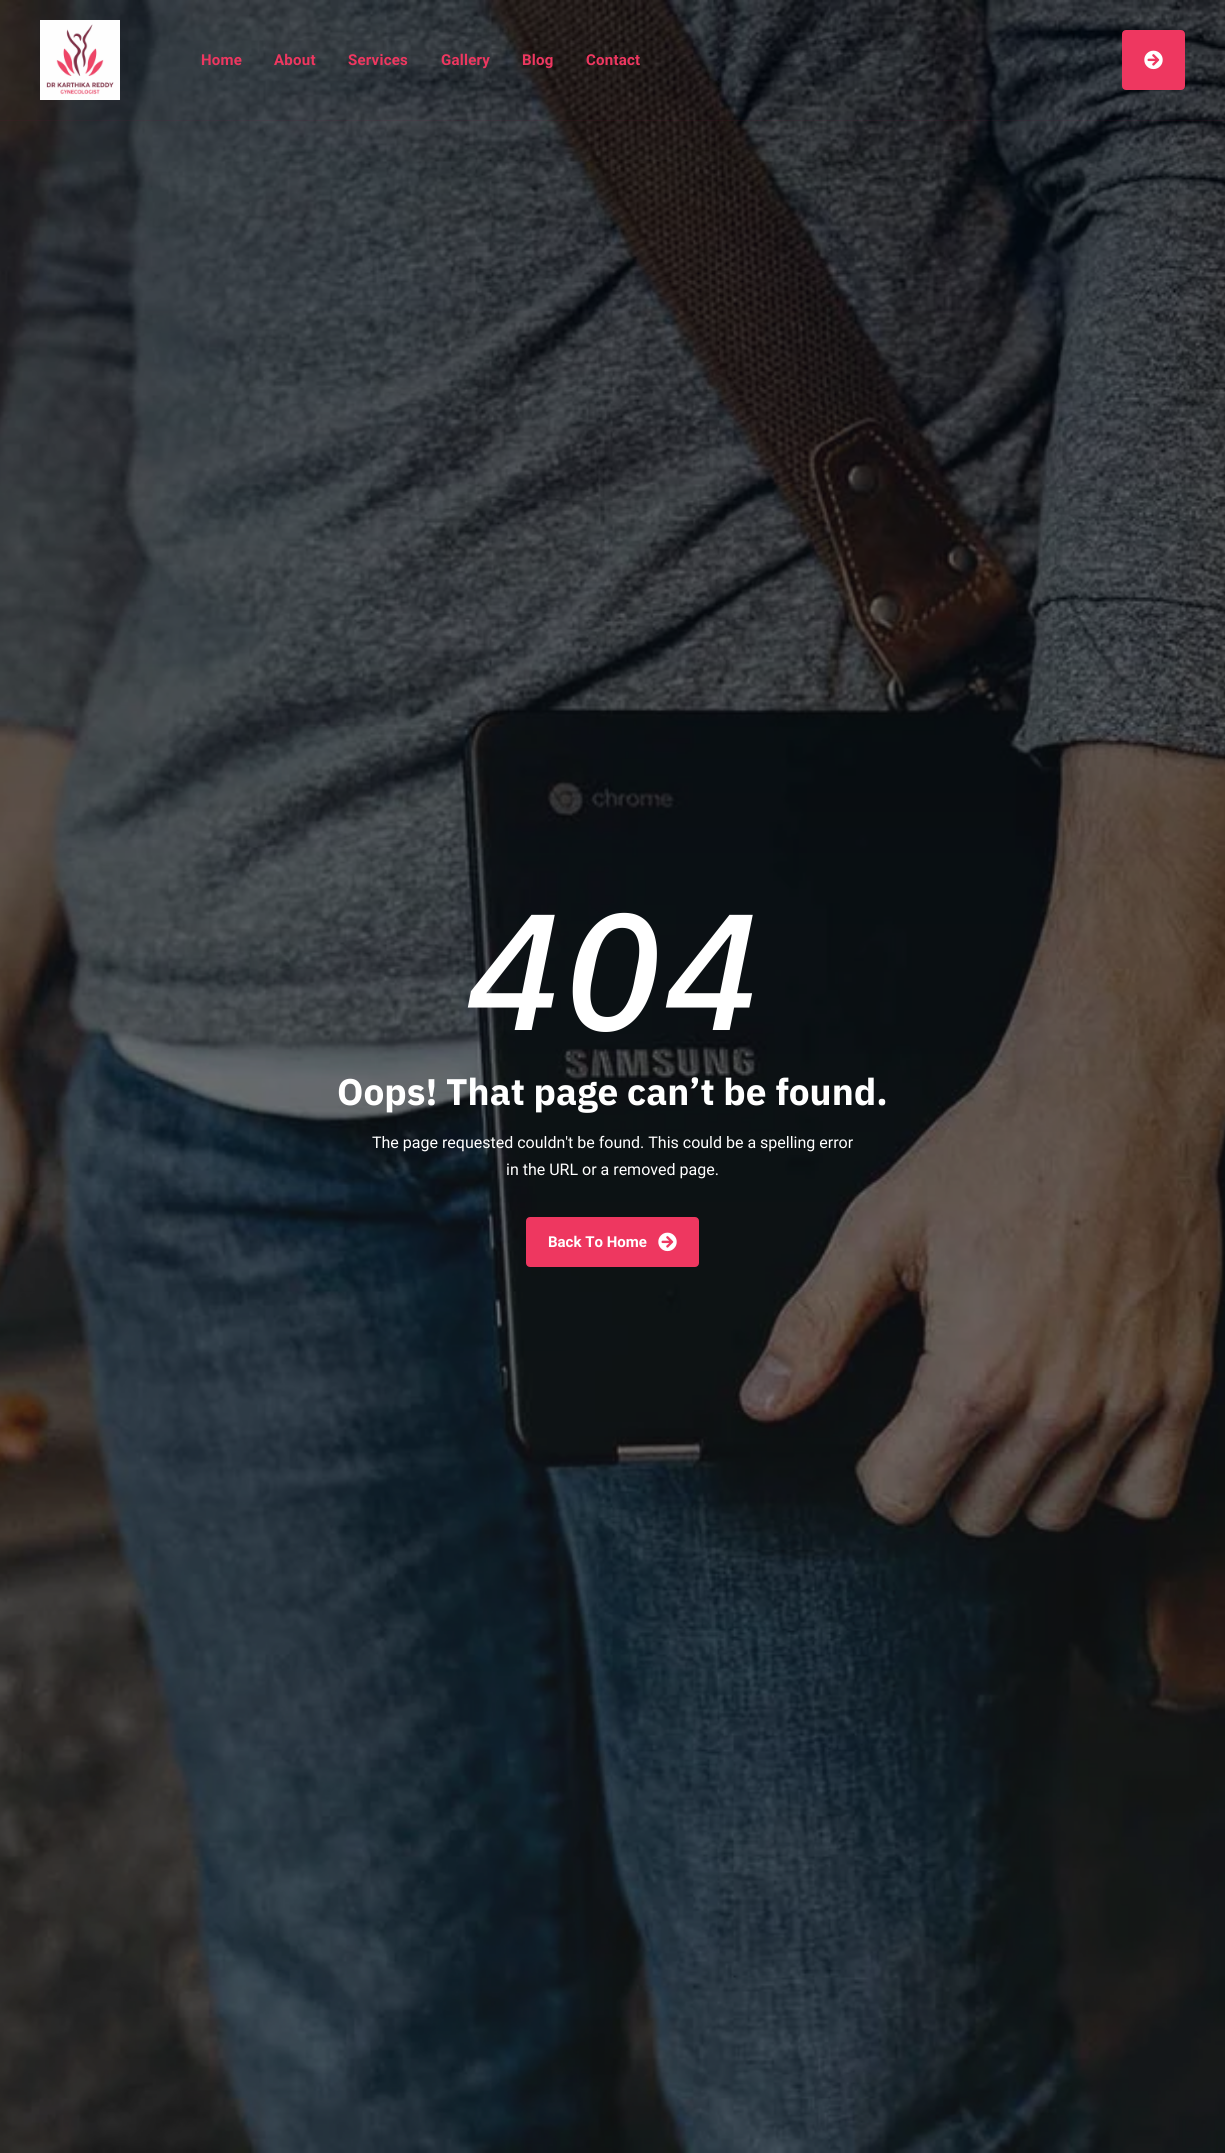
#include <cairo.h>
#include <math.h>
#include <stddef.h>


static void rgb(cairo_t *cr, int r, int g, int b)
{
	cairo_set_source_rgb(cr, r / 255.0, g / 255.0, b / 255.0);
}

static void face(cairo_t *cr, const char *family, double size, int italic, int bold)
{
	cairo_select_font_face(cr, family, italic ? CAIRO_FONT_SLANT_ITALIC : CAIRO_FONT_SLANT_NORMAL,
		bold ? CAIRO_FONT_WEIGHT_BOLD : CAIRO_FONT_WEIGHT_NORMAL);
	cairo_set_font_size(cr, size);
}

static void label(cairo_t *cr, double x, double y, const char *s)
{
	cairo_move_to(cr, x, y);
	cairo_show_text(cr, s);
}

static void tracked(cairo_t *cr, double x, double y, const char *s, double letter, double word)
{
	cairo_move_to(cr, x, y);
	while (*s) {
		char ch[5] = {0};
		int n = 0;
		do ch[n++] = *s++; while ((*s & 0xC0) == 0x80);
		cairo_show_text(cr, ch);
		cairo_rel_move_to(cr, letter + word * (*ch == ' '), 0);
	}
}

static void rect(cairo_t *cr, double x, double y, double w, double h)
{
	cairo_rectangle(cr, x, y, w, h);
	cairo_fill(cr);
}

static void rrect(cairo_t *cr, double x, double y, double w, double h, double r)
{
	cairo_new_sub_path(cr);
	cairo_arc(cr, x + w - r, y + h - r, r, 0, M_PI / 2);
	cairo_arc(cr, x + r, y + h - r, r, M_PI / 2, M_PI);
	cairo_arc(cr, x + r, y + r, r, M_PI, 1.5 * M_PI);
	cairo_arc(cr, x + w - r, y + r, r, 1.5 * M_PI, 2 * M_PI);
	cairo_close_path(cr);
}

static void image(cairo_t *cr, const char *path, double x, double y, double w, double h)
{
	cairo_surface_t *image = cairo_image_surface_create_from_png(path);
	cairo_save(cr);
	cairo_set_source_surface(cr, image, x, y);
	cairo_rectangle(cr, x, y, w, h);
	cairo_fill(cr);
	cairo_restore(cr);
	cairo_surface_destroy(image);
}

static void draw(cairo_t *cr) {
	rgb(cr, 255, 255, 255);
	cairo_paint(cr);
	image(cr, "image2.png", 0, 0, 1225, 2153);
	cairo_set_source_rgba(cr, 0.475, 0.078, 0.216, 0.1);
	rect(cr, 0, 120, 1225, 1);
	image(cr, "image0.png", 40, 20, 80, 80);
	face(cr, "Roboto", 15, 0, 1);
	rgb(cr, 238, 55, 96);
	tracked(cr, 201, 65, "Home", 0.25, 0);
	tracked(cr, 274, 65, "About", 0.25, 0);
	tracked(cr, 348, 65, "Services", 0.25, 0);
	tracked(cr, 441, 65, "Gallery", 0.25, 0);
	tracked(cr, 522, 65, "Blog", 0.25, 0);
	tracked(cr, 586, 65, "Contact", 0.25, 0);
	rrect(cr, 1123, 31, 61, 58, 3);
	cairo_fill_preserve(cr);
	cairo_stroke(cr);
	image(cr, "image1.png", 1144, 50, 19, 20);
	face(cr, "IBM Plex Sans Medium", 165, 1, 0);
	rgb(cr, 255, 255, 255);
	label(cr, 464, 1030, "404");
	face(cr, "IBM Plex Sans", 37, 0, 1);
	label(cr, 337, 1105, "Oops! That page can’t be found.");
	face(cr, "Roboto", 16, 0, 0);
	label(cr, 372, 1148, "The page requested couldn't be found. This could be a spelling error");
	label(cr, 506, 1175, "in the URL or a removed page.");
	rgb(cr, 238, 55, 96);
	rrect(cr, 527, 1218, 171, 48, 3);
	cairo_fill_preserve(cr);
	cairo_stroke(cr);
	face(cr, "Roboto", 15, 0, 1);
	rgb(cr, 255, 255, 255);
	label(cr, 548, 1247, "Back To Home");
	image(cr, "image1.png", 658, 1232, 19, 20);
}

int main(void) {
	cairo_surface_t *surface = cairo_image_surface_create(CAIRO_FORMAT_RGB24, 1225, 2153);
	cairo_t *cr = cairo_create(surface);
	cairo_font_options_t *options = cairo_font_options_create();
	cairo_font_options_set_hint_metrics(options, CAIRO_HINT_METRICS_OFF);
	cairo_font_options_set_hint_style(options, CAIRO_HINT_STYLE_NONE);
	cairo_set_font_options(cr, options);
	cairo_set_miter_limit(cr, 4);
	draw(cr);
	cairo_surface_write_to_png(surface, "render.png");
	cairo_font_options_destroy(options);
	cairo_destroy(cr);
	cairo_surface_destroy(surface);
	return 0;
}
